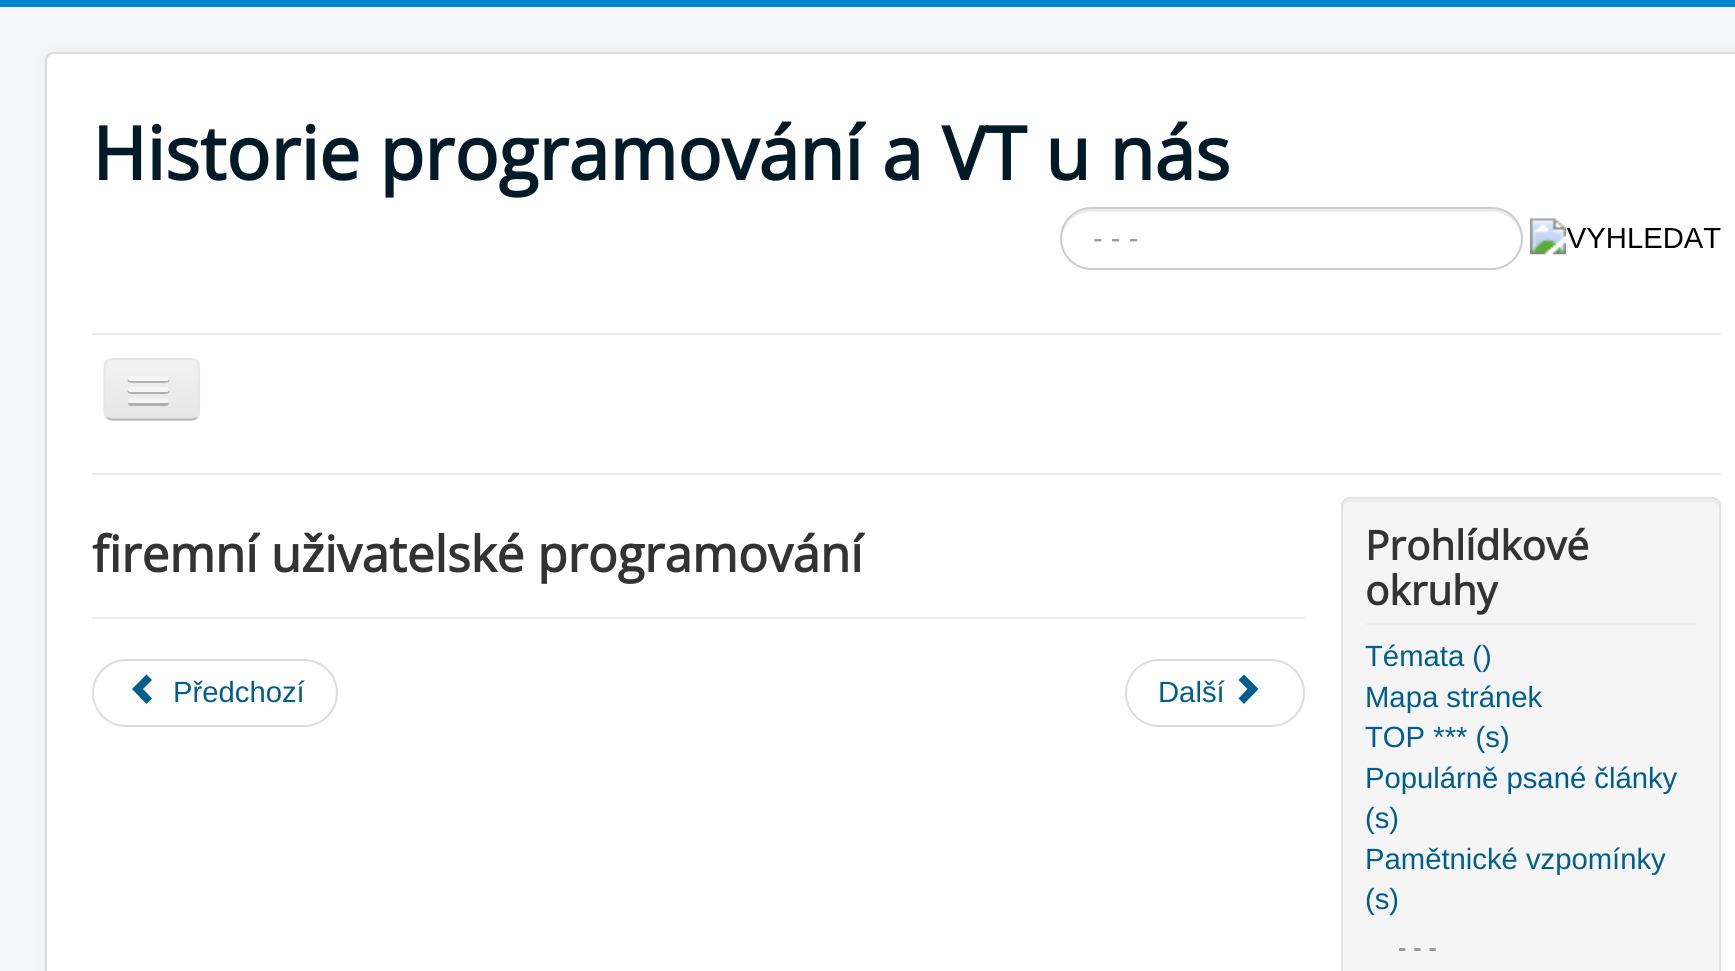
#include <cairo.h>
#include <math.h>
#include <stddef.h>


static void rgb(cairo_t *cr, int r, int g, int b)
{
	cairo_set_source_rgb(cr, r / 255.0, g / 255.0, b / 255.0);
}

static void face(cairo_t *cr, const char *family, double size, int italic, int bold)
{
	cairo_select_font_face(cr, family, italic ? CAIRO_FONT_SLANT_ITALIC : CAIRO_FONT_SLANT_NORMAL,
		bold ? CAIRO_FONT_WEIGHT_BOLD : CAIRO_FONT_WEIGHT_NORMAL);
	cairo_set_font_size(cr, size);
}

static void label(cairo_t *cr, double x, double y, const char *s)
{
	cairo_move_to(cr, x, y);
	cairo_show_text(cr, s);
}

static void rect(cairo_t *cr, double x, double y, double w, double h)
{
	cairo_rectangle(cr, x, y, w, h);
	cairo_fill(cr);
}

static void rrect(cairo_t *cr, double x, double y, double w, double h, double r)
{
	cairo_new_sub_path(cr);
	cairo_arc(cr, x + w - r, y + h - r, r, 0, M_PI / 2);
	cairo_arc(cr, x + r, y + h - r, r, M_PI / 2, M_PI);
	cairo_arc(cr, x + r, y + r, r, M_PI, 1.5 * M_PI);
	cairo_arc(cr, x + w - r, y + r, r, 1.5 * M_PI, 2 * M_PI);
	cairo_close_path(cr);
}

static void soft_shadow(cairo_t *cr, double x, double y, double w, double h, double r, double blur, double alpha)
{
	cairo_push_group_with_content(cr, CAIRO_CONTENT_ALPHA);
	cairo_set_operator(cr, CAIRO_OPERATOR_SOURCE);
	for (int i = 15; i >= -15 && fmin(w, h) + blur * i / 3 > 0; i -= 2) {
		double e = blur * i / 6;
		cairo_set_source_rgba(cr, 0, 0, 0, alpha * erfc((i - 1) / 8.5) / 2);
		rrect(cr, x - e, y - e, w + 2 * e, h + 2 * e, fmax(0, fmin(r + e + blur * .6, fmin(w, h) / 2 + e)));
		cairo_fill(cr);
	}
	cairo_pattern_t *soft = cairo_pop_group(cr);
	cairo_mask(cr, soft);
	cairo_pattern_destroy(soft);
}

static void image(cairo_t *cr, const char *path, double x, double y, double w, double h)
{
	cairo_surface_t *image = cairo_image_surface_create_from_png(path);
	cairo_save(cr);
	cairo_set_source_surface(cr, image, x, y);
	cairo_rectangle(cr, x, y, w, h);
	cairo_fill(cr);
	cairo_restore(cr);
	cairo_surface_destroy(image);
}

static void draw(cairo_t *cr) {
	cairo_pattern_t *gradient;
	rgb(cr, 244, 246, 247);
	cairo_paint(cr);
	rgb(cr, 0, 136, 204);
	rect(cr, 0, 0, 1735, 7);
	rgb(cr, 0, 0, 0);
	soft_shadow(cr, 45, 52, 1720, 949, 9, 7, 0.05);
	rgb(cr, 255, 255, 255);
	rrect(cr, 45, 52, 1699, 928, 9);
	cairo_fill(cr);
	rrect(cr, 46, 53, 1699, 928, 8);
	cairo_set_source_rgba(cr, 0, 0, 0, 0.15);
	cairo_stroke(cr);
	face(cr, "Open Sans", 73.5, 0, 1);
	rgb(cr, 0, 26, 39);
	label(cr, 92, 180, "Historie programování a VT u nás");
	rgb(cr, 236, 236, 236);
	cairo_new_path(cr);
	cairo_move_to(cr, 1091, 212);
	cairo_line_to(cr, 1492, 212);
	cairo_curve_to(cr, 1508, 212, 1520, 224, 1521, 240);
	cairo_curve_to(cr, 1522, 223, 1508, 209, 1492, 209);
	cairo_line_to(cr, 1092, 209);
	cairo_curve_to(cr, 1075, 209, 1061, 223, 1062, 240);
	cairo_curve_to(cr, 1063, 224, 1075, 212, 1091, 212);
	cairo_close_path(cr);
	cairo_fill(cr);
	rrect(cr, 1061, 208, 461, 61, 30.5);
	rgb(cr, 204, 204, 204);
	cairo_stroke(cr);
	face(cr, "Liberation Sans", 29.25, 0, 0);
	rgb(cr, 153, 153, 153);
	label(cr, 1093, 248, "- - -");
	image(cr, "image0.png", 1530, 218, 191, 37);
	rgb(cr, 236, 236, 236);
	rect(cr, 92, 333, 1629, 2);
	rect(cr, 92, 473, 1629, 2);
	rgb(cr, 237, 237, 237);
	rrect(cr, 104, 358, 96, 63, 9);
	cairo_fill(cr);
	cairo_save(cr);
	rrect(cr, 104, 358, 96, 63, 9);
	cairo_clip(cr);
	gradient = cairo_pattern_create_linear(152, 360, 152, 419);
	cairo_pattern_add_color_stop_rgba(gradient, 0, 0.949, 0.949, 0.949, 1);
	cairo_pattern_add_color_stop_rgba(gradient, 1, 0.902, 0.902, 0.902, 1);
	cairo_set_source(cr, gradient);
	cairo_pattern_destroy(gradient);
	rect(cr, 104, 360, 96, 59);
	cairo_restore(cr);
	cairo_new_path(cr);
	cairo_move_to(cr, 197, 417.5);
	cairo_curve_to(cr, 195.5, 419, 193.5, 419.5, 191, 419.5);
	cairo_line_to(cr, 112.5, 419.5);
	cairo_curve_to(cr, 110.5, 419.5, 108.5, 419, 107, 417.5);
	rgb(cr, 191, 191, 191);
	cairo_set_line_width(cr, 2.2);
	cairo_stroke(cr);
	cairo_new_path(cr);
	cairo_move_to(cr, 107, 417.5);
	cairo_curve_to(cr, 105.5, 416, 104.5, 414, 104.5, 412);
	cairo_line_to(cr, 104.5, 367);
	cairo_curve_to(cr, 104.5, 364.5, 105.5, 362.5, 107, 361);
	cairo_curve_to(cr, 108.5, 359.5, 110.5, 359, 112.5, 359);
	cairo_line_to(cr, 191, 359);
	cairo_curve_to(cr, 193.5, 359, 195.5, 359.5, 197, 361);
	cairo_curve_to(cr, 198.5, 362.5, 199, 364.5, 199, 367);
	cairo_line_to(cr, 199, 412);
	cairo_curve_to(cr, 199, 414, 198.5, 416, 197, 417.5);
	rgb(cr, 230, 230, 230);
	cairo_stroke(cr);
	rgb(cr, 178, 178, 178);
	cairo_new_path(cr);
	cairo_move_to(cr, 128, 379);
	cairo_curve_to(cr, 125, 384, 136, 383, 136, 383);
	cairo_line_to(cr, 160, 383);
	cairo_curve_to(cr, 161, 383, 172, 384, 169, 379);
	cairo_curve_to(cr, 168, 380, 167, 380, 166, 380);
	cairo_line_to(cr, 130, 380);
	cairo_curve_to(cr, 130, 380, 129, 380, 128, 379);
	cairo_close_path(cr);
	cairo_fill(cr);
	rgb(cr, 245, 245, 245);
	rrect(cr, 128, 376, 41, 5, 2.5);
	cairo_fill(cr);
	rgb(cr, 176, 176, 176);
	cairo_new_path(cr);
	cairo_move_to(cr, 128, 390);
	cairo_curve_to(cr, 125, 395, 136, 394, 136, 394);
	cairo_line_to(cr, 160, 394);
	cairo_curve_to(cr, 161, 394, 172, 395, 169, 390);
	cairo_curve_to(cr, 168, 391, 167, 392, 166, 392);
	cairo_line_to(cr, 130, 392);
	cairo_curve_to(cr, 130, 392, 129, 391, 128, 390);
	cairo_close_path(cr);
	cairo_fill(cr);
	rgb(cr, 245, 245, 245);
	rrect(cr, 128, 387, 41, 5, 2.5);
	cairo_fill(cr);
	rgb(cr, 175, 175, 175);
	cairo_new_path(cr);
	cairo_move_to(cr, 129, 402);
	cairo_line_to(cr, 128, 404);
	cairo_curve_to(cr, 129, 407, 135, 406, 136, 406);
	cairo_line_to(cr, 160, 406);
	cairo_curve_to(cr, 162, 406, 168, 407, 169, 404);
	cairo_line_to(cr, 168, 402);
	cairo_line_to(cr, 167, 403);
	cairo_line_to(cr, 130, 403);
	cairo_close_path(cr);
	cairo_fill(cr);
	rgb(cr, 245, 245, 245);
	rrect(cr, 128, 398, 41, 5, 2.5);
	cairo_fill(cr);
	rgb(cr, 238, 238, 238);
	rect(cr, 92, 617, 1213, 2);
	face(cr, "Open Sans", 49.5, 0, 1);
	rgb(cr, 51, 51, 51);
	label(cr, 92, 572, "firemní uživatelské programování");
	rrect(cr, 93, 660, 244, 66, 33);
	rgb(cr, 221, 221, 221);
	cairo_set_line_width(cr, 2);
	cairo_stroke(cr);
	rgb(cr, 0, 94, 141);
	cairo_new_path(cr);
	cairo_move_to(cr, 146.5, 704);
	cairo_line_to(cr, 132, 689);
	cairo_line_to(cr, 146.5, 674.5);
	cairo_line_to(cr, 152, 680);
	cairo_line_to(cr, 143, 689);
	cairo_line_to(cr, 152, 698.5);
	cairo_close_path(cr);
	cairo_fill(cr);
	face(cr, "Liberation Sans", 29.25, 0, 0);
	label(cr, 173, 702, "Předchozí");
	rrect(cr, 1126, 660, 178, 66, 33);
	rgb(cr, 221, 221, 221);
	cairo_stroke(cr);
	rgb(cr, 0, 94, 141);
	label(cr, 1158, 702, "Další");
	cairo_new_path(cr);
	cairo_move_to(cr, 1244, 674.5);
	cairo_line_to(cr, 1258.5, 689);
	cairo_line_to(cr, 1244, 704);
	cairo_line_to(cr, 1238.5, 698.5);
	cairo_line_to(cr, 1247.5, 689);
	cairo_line_to(cr, 1238.5, 680);
	cairo_close_path(cr);
	cairo_fill(cr);
	rgb(cr, 245, 245, 245);
	rrect(cr, 1341, 497, 380, 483, 9);
	cairo_fill(cr);
	rgb(cr, 233, 233, 233);
	cairo_new_path(cr);
	cairo_move_to(cr, 1350, 502);
	cairo_line_to(cr, 1712, 502);
	cairo_curve_to(cr, 1716, 502, 1719, 505, 1719, 508);
	cairo_line_to(cr, 1719, 507);
	cairo_curve_to(cr, 1719, 503, 1716, 500, 1712, 500);
	cairo_line_to(cr, 1350, 500);
	cairo_curve_to(cr, 1346, 500, 1343, 503, 1343, 507);
	cairo_line_to(cr, 1343, 508);
	cairo_curve_to(cr, 1343, 505, 1346, 502, 1350, 502);
	cairo_close_path(cr);
	cairo_fill(cr);
	rrect(cr, 1342, 498, 378, 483, 8);
	rgb(cr, 227, 227, 227);
	cairo_stroke(cr);
	rgb(cr, 238, 238, 238);
	rect(cr, 1366, 623, 331, 2);
	face(cr, "Open Sans", 40.5, 0, 1);
	rgb(cr, 51, 51, 51);
	label(cr, 1365, 560, "Prohlídkové");
	label(cr, 1365, 605, "okruhy");
	face(cr, "Liberation Sans", 29.25, 0, 0);
	rgb(cr, 0, 94, 141);
	label(cr, 1365, 666, "Témata ()");
	label(cr, 1365, 707, "Mapa stránek");
	label(cr, 1365, 747, "TOP *** (s)");
	label(cr, 1365, 788, "Populárně psané články");
	label(cr, 1365, 828, "(s)");
	label(cr, 1365, 869, "Pamětnické vzpomínky");
	label(cr, 1365, 909, "(s)");
	face(cr, "Liberation Sans", 25, 0, 1);
	rgb(cr, 153, 153, 153);
	label(cr, 1398, 956, "- - -");
}

int main(void) {
	cairo_surface_t *surface = cairo_image_surface_create(CAIRO_FORMAT_RGB24, 1735, 971);
	cairo_t *cr = cairo_create(surface);
	cairo_font_options_t *options = cairo_font_options_create();
	cairo_font_options_set_hint_metrics(options, CAIRO_HINT_METRICS_OFF);
	cairo_font_options_set_hint_style(options, CAIRO_HINT_STYLE_NONE);
	cairo_set_font_options(cr, options);
	cairo_set_miter_limit(cr, 4);
	draw(cr);
	cairo_surface_write_to_png(surface, "render.png");
	cairo_font_options_destroy(options);
	cairo_destroy(cr);
	cairo_surface_destroy(surface);
	return 0;
}
